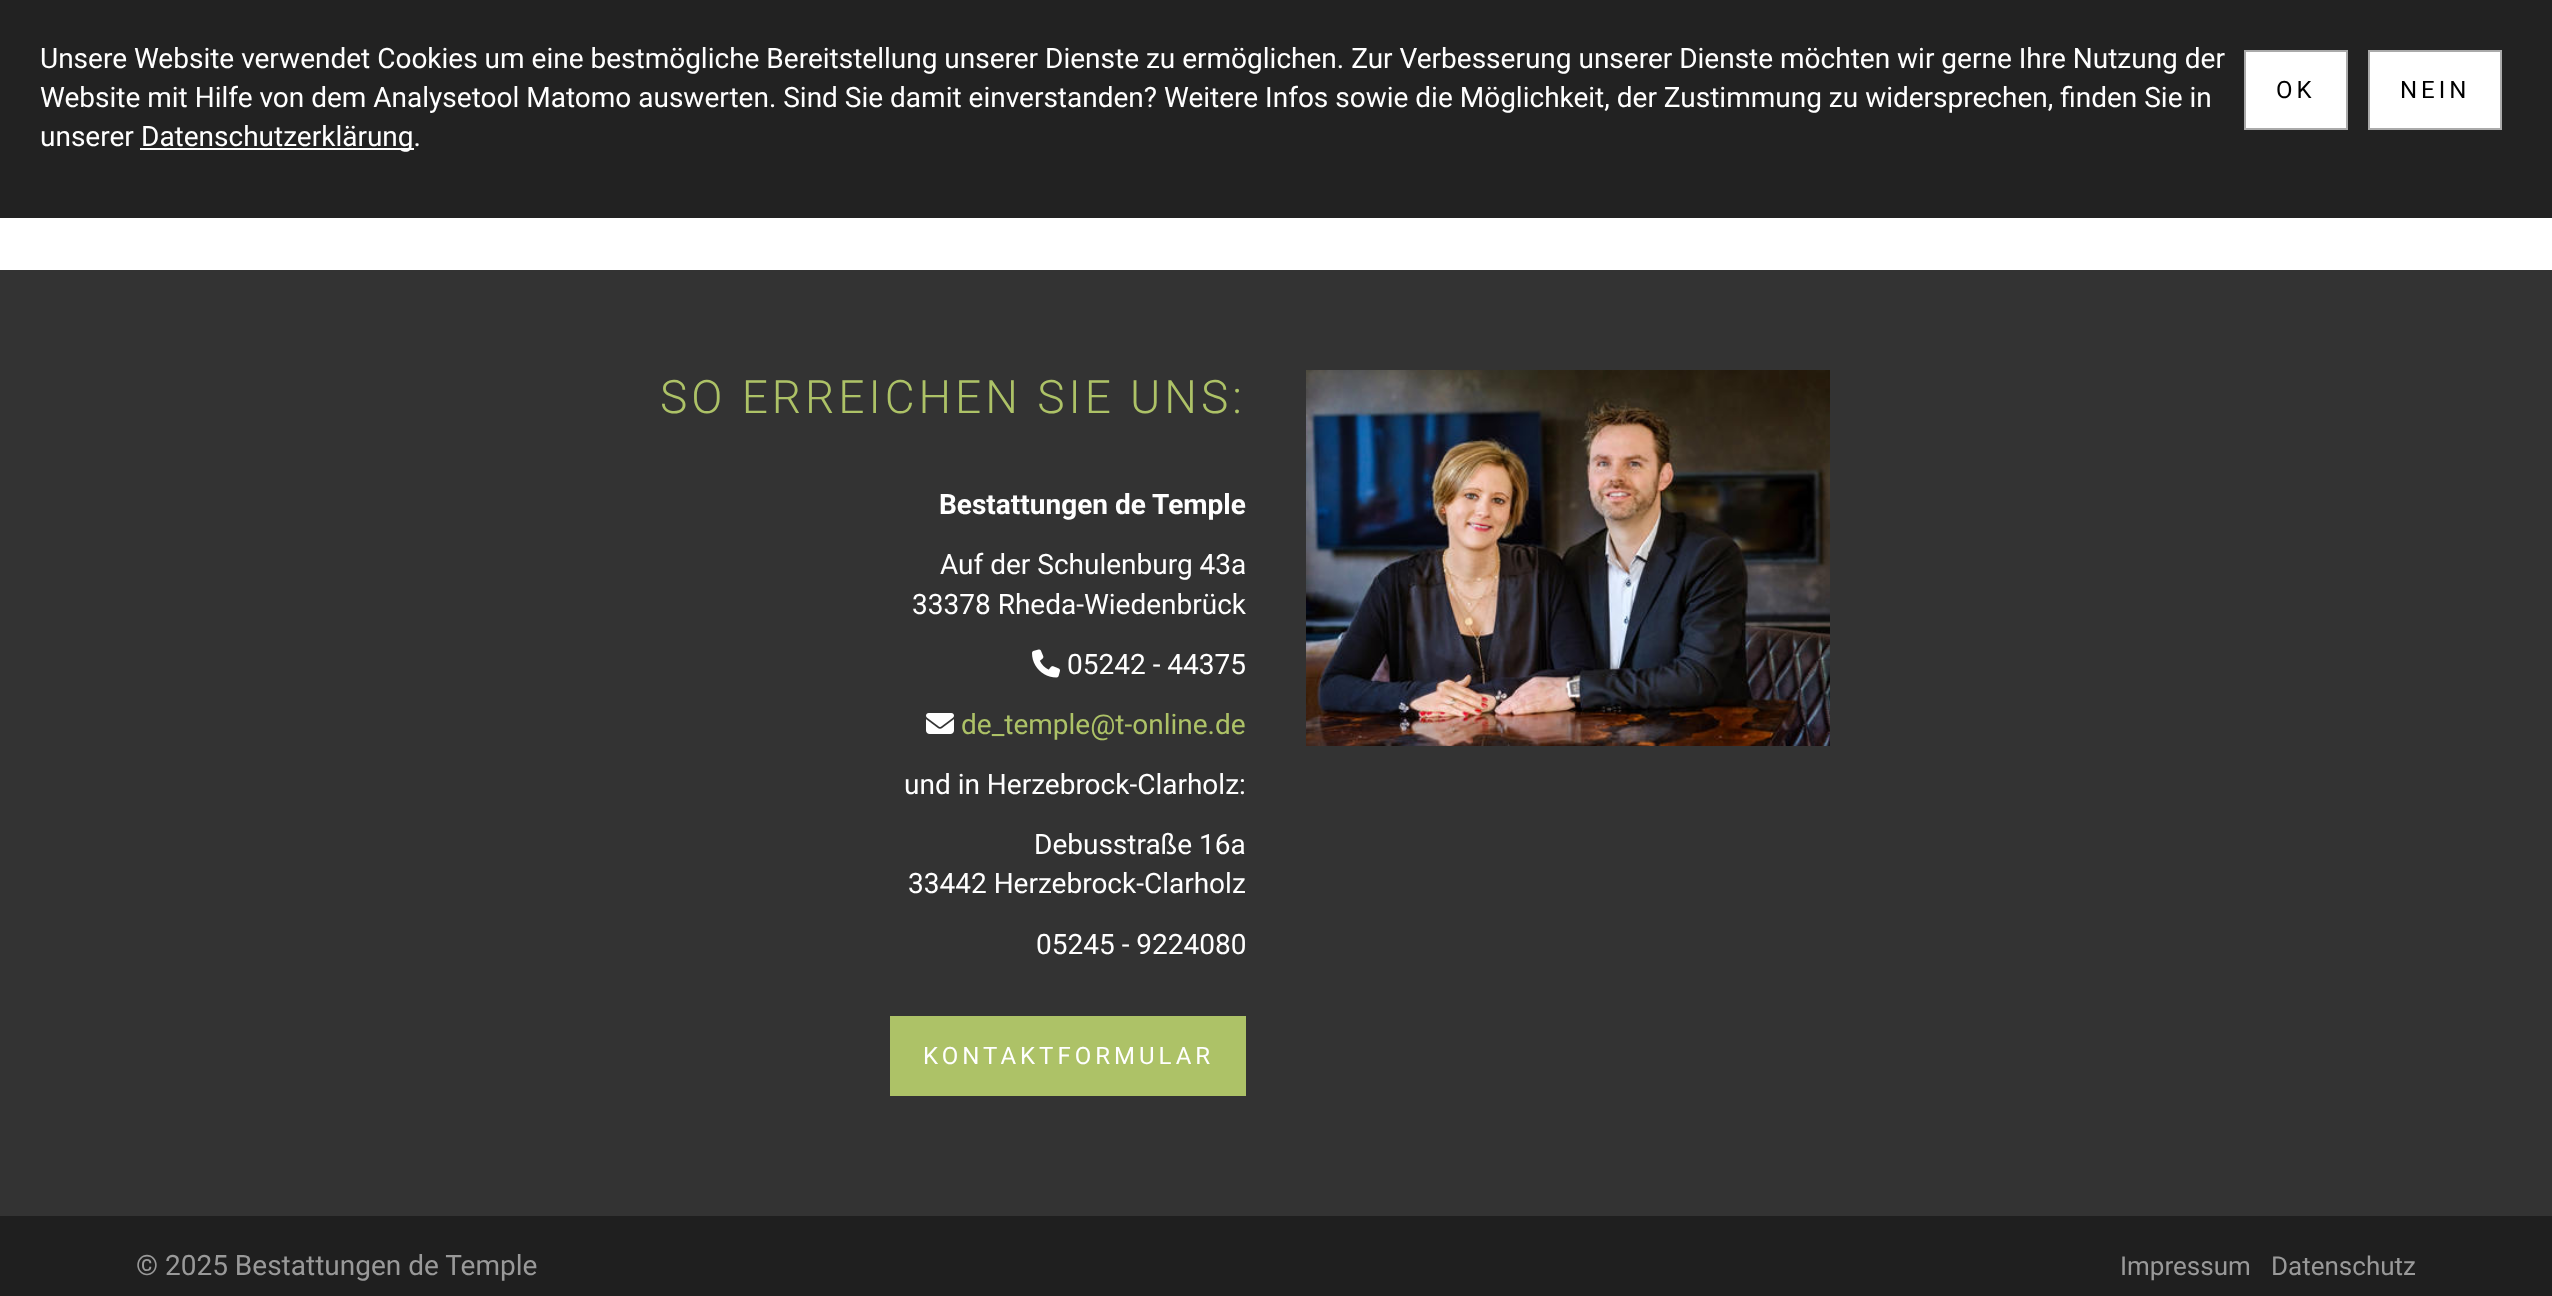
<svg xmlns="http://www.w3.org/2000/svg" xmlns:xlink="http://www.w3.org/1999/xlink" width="2552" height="1296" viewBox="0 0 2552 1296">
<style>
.cls-1{font:28px Roboto;fill:#ffffff}
.cls-2{font:24px Roboto;letter-spacing:4px;fill:#000000}
.cls-3{font:300 46px Roboto;letter-spacing:4px;fill:#adc267}
.cls-4{font:bold 28px Roboto;fill:#ffffff}
.cls-5{font:28px Roboto;fill:#adc267}
.cls-6{font:24px Roboto;letter-spacing:4px;fill:#ffffff}
.cls-7{font:28px Roboto;fill:#999999}
.cls-8{font:26px Roboto;fill:#999999}
</style>
<rect width="100%" height="100%" fill="#ffffff"/>
<rect fill="#222222" x="0" y="0" width="2552" height="218"/>
<rect fill="#ffffff" x="140" y="148" width="274" height="2"/>
<rect fill="#ffffff" stroke="#aaaaaa" stroke-width="2" x="2245" y="51" width="102" height="78"/>
<rect fill="#ffffff" stroke="#aaaaaa" stroke-width="2" x="2369" y="51" width="132" height="78"/>
<rect fill="#333333" x="0" y="270" width="2552" height="946"/>
<image xlink:href="image0.png" x="1032" y="649" width="28" height="29"/>
<image xlink:href="image1.png" x="926" y="713" width="28" height="21"/>
<rect fill="#adc267" x="890" y="1016" width="356" height="80"/>
<image xlink:href="image2.png" x="1306" y="370" width="524" height="376"/>
<rect fill="#1f1f1f" x="0" y="1216" width="2552" height="80"/>
<text class="cls-1"><tspan x="40" y="68">Unsere Website verwendet Cookies um eine bestmögliche Bereitstellung unserer Dienste zu ermöglichen. Zur Verbesserung unserer Dienste möchten wir gerne Ihre Nutzung der</tspan><tspan x="40" y="107">Website mit Hilfe von dem Analysetool Matomo auswerten. Sind Sie damit einverstanden? Weitere Infos sowie die Möglichkeit, der Zustimmung zu widersprechen, finden Sie in</tspan><tspan x="40" y="146">unserer</tspan></text>
<text class="cls-1" x="141" y="146">Datenschutzerklärung.</text>
<text class="cls-2" x="2276" y="98">OK</text>
<text class="cls-2" x="2400" y="98">NEIN</text>
<text class="cls-3" x="660" y="413">SO ERREICHEN SIE UNS:</text>
<text class="cls-4" x="939" y="514">Bestattungen de Temple</text>
<text class="cls-1" x="940" y="574">Auf der Schulenburg 43a</text>
<text class="cls-1" x="912" y="614">33378 Rheda-Wiedenbrück</text>
<text class="cls-1" x="1067" y="674">05242 - 44375</text>
<text class="cls-5" x="961" y="734">de_temple@t-online.de</text>
<text class="cls-1" x="904" y="794">und in Herzebrock-Clarholz:</text>
<text class="cls-1" x="1034" y="854">Debusstraße 16a</text>
<text class="cls-1" x="908" y="893">33442 Herzebrock-Clarholz</text>
<text class="cls-1" x="1036" y="954">05245 - 9224080</text>
<text class="cls-6" x="923" y="1064">KONTAKTFORMULAR</text>
<text class="cls-7" x="136" y="1275">© 2025 Bestattungen de Temple</text>
<text class="cls-8" x="2120" y="1275">Impressum</text>
<text class="cls-8" x="2271" y="1275">Datenschutz</text>
</svg>
